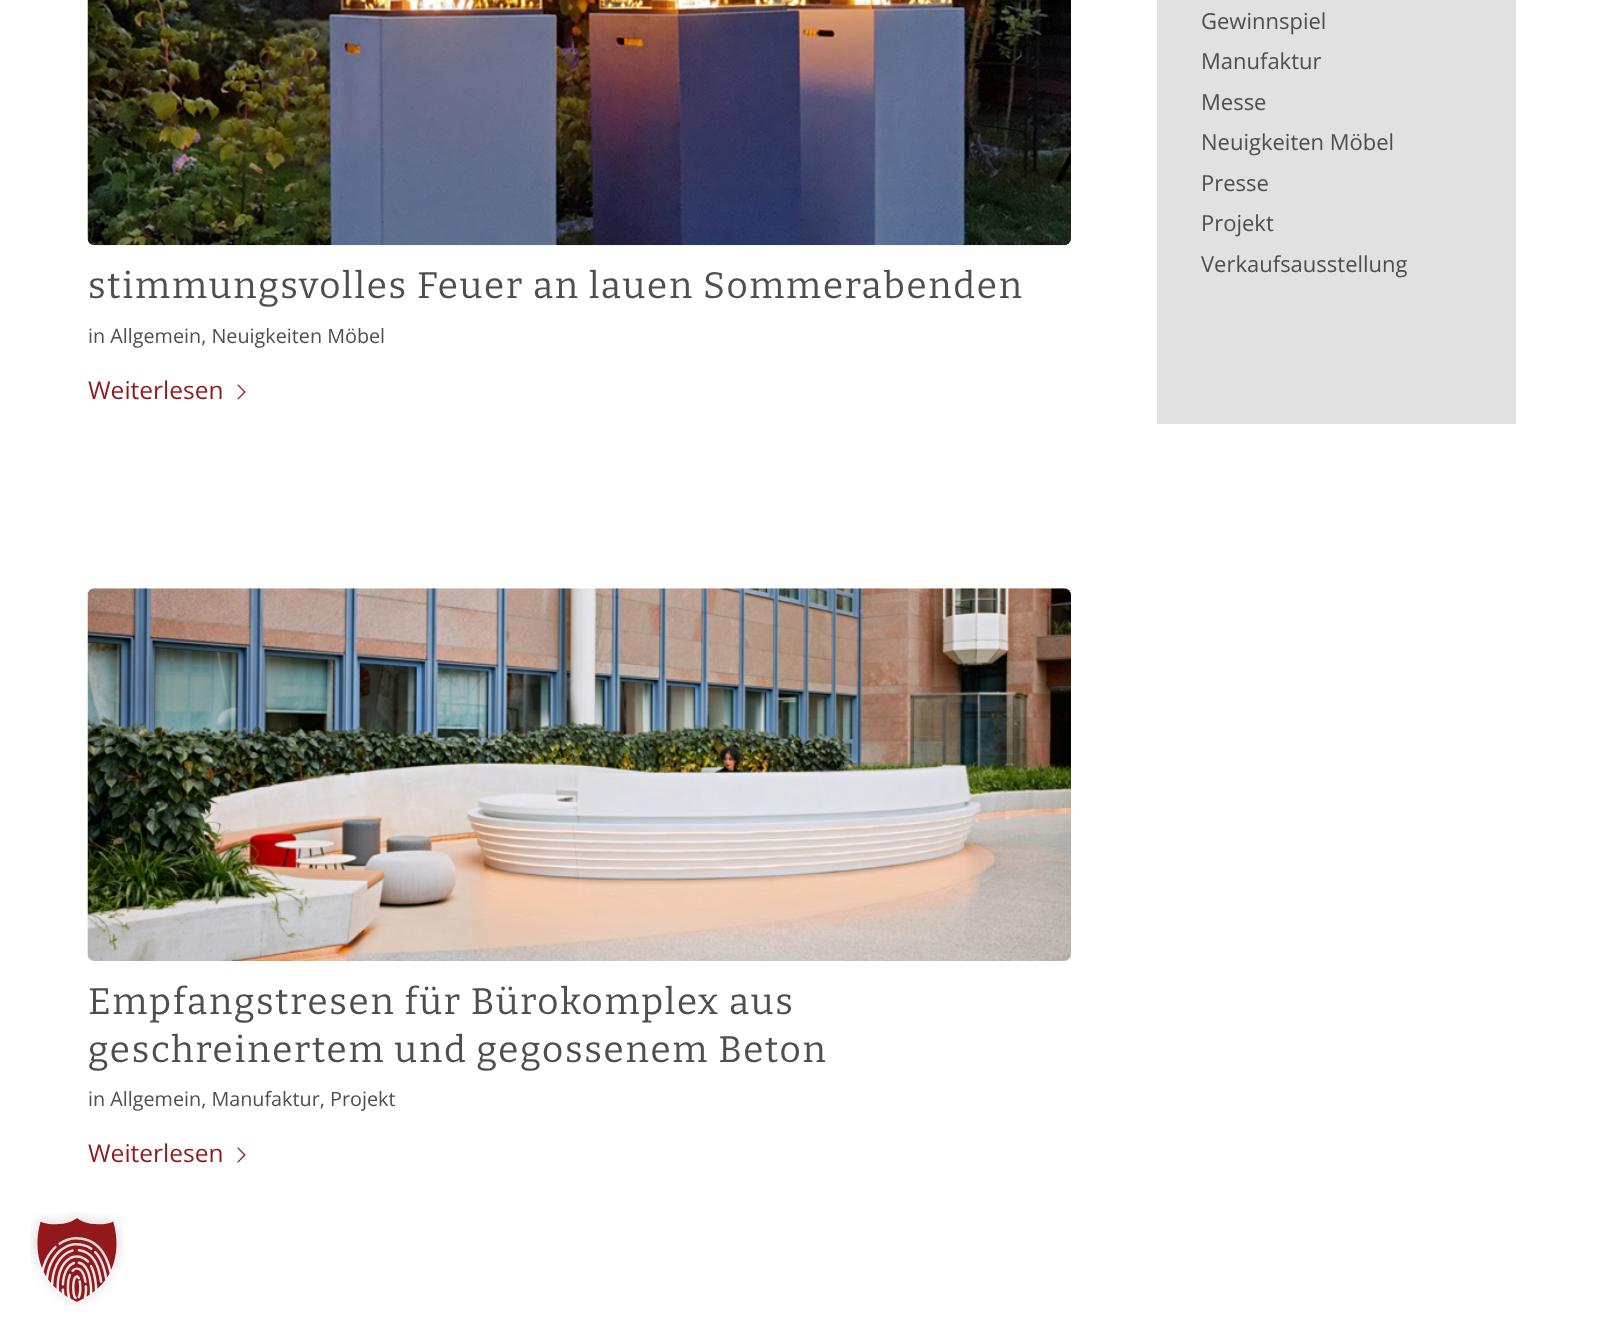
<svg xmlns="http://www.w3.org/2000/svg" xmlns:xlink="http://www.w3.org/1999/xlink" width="1603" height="1336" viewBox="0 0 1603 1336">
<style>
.cls-1{font:22px Open Sans;fill:#4e4e4e}
.cls-2{font:100 36.75px Bitter;letter-spacing:1.75px;fill:#4e4e4e}
.cls-3{font:19.8px Open Sans;fill:#4e4e4e}
.cls-4{font:24.5px Open Sans;fill:#92181c}
</style>
<rect width="100%" height="100%" fill="#ffffff"/>
<rect fill="#e1e1e1" x="1157" y="0" width="359" height="424"/>
<image xlink:href="image0.png" x="87" y="0" width="984" height="246"/>
<image xlink:href="image1.png" x="237" y="384" width="9" height="16"/>
<image xlink:href="image2.png" x="87" y="588" width="984" height="373"/>
<image xlink:href="image1.png" x="237" y="1147" width="9" height="16"/>
<image xlink:href="image3.png" x="30" y="1212" width="94" height="94"/>
<text class="cls-1"><tspan x="1201" y="29">Gewinnspiel</tspan><tspan x="1201" y="69">Manufaktur</tspan><tspan x="1201" y="110">Messe</tspan><tspan x="1201" y="150">Neuigkeiten Möbel</tspan><tspan x="1201" y="191">Presse</tspan><tspan x="1201" y="231">Projekt</tspan><tspan x="1201" y="272">Verkaufsausstellung</tspan></text>
<text class="cls-2" x="88" y="298">stimmungsvolles Feuer an lauen Sommerabenden</text>
<text class="cls-3" x="88" y="343">in Allgemein, Neuigkeiten Möbel</text>
<text class="cls-4" x="88" y="399">Weiterlesen</text>
<text class="cls-2"><tspan x="88" y="1014">Empfangstresen für Bürokomplex aus</tspan><tspan x="88" y="1062">geschreinertem und gegossenem Beton</tspan></text>
<text class="cls-3" x="88" y="1106">in Allgemein, Manufaktur, Projekt</text>
<text class="cls-4" x="88" y="1162">Weiterlesen</text>
</svg>
